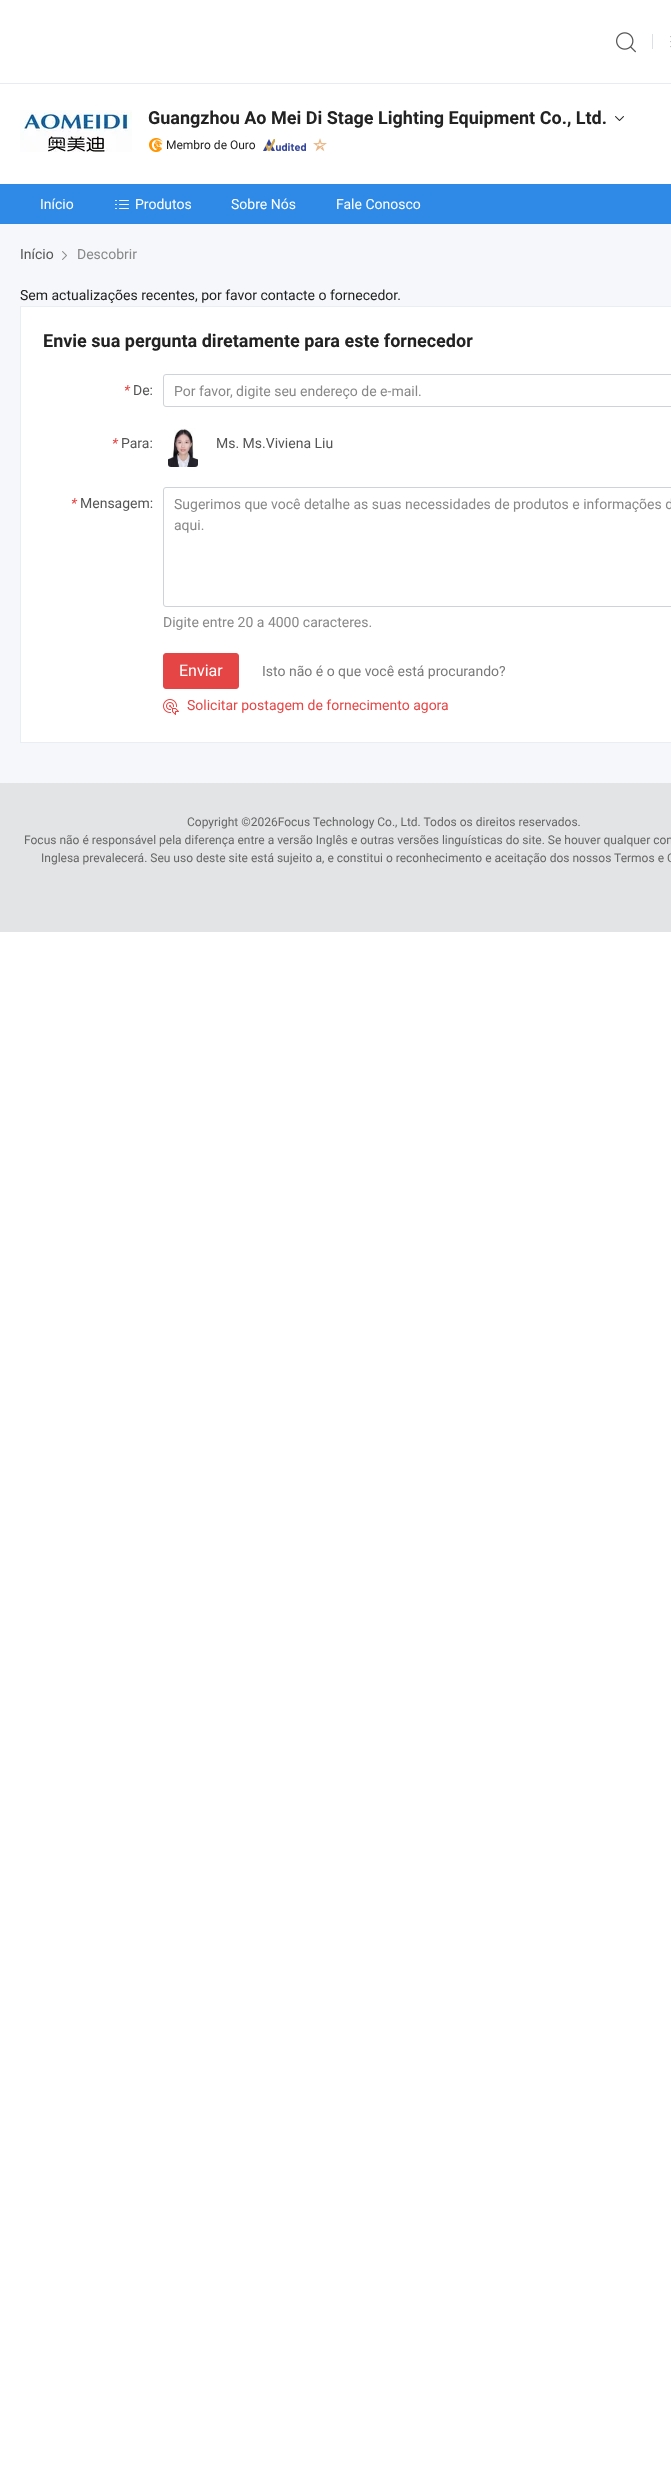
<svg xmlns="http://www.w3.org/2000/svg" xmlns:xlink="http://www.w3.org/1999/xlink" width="671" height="2469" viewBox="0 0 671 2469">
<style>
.cls-1{font:bold 18px Roboto;fill:#222222}
.cls-2{font:12px Roboto;fill:#222222}
.cls-3{font:14px Roboto;fill:#ffffff}
.cls-4{font:14px Roboto;fill:#555555}
.cls-5{font:14px Roboto;fill:#888888}
.cls-6{font:14px Roboto;fill:#222222}
.cls-7{font:italic 14px Roboto;fill:#e64545}
.cls-8{font:16px Roboto;fill:#ffffff}
.cls-9{font:14px Roboto;fill:#7a7a7a}
.cls-10{font:14px Roboto;fill:#e64545}
.cls-11{font:12px Roboto;fill:#666666}
</style>
<rect width="100%" height="100%" fill="#ffffff"/>
<image xlink:href="image0.png" x="616" y="32" width="20" height="21"/>
<rect fill="#dae0e6" x="652" y="34" width="1" height="15"/>
<image xlink:href="image1.png" x="670" y="36" width="1" height="12"/>
<rect fill="#e6ecf2" x="0" y="83" width="671" height="1"/>
<image xlink:href="image2.png" x="20" y="110" width="112" height="42"/>
<image xlink:href="image3.png" x="615" y="116" width="9" height="5"/>
<image xlink:href="image4.png" x="149" y="138" width="14" height="14"/>
<image xlink:href="image5.png" x="263" y="139" width="43" height="12"/>
<image xlink:href="image6.png" x="313" y="138" width="14" height="14"/>
<rect fill="#2e8ae6" x="0" y="184" width="671" height="40"/>
<image xlink:href="image7.png" x="115" y="200" width="14" height="9"/>
<rect fill="#f5f7fa" x="0" y="224" width="671" height="559"/>
<image xlink:href="image8.png" x="62" y="251" width="5" height="9"/>
<rect fill="#ffffff" stroke="#e9eef4" x="20.5" y="306.5" width="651" height="436"/>
<rect fill="none" stroke="#ced3d9" x="163.5" y="374.5" width="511" height="32" rx="2.5"/>
<image xlink:href="image9.png" x="168" y="428" width="30" height="39"/>
<rect fill="none" stroke="#ced3d9" x="163.5" y="487.5" width="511" height="119" rx="2.5"/>
<rect fill="#e64545" stroke="#e64545" x="163.5" y="653.5" width="75" height="35" rx="2.5"/>
<image xlink:href="image10.png" x="163" y="699" width="16" height="16"/>
<rect fill="#e3e4e6" x="0" y="783" width="671" height="149"/>
<text class="cls-1" x="148" y="124">Guangzhou Ao Mei Di Stage Lighting Equipment Co., Ltd.</text>
<text class="cls-2" x="166" y="149">Membro de Ouro</text>
<text class="cls-3" x="40" y="209">Início</text>
<text class="cls-3" x="135" y="209">Produtos</text>
<text class="cls-3" x="231" y="209">Sobre Nós</text>
<text class="cls-3" x="336" y="209">Fale Conosco</text>
<text class="cls-4" x="20" y="259">Início</text>
<text class="cls-5" x="77" y="259">Descobrir</text>
<text class="cls-6" x="20" y="300">Sem actualizações recentes, por favor contacte o fornecedor.</text>
<text class="cls-1" x="43" y="347">Envie sua pergunta diretamente para este fornecedor</text>
<text class="cls-7" x="124" y="395">*</text>
<text class="cls-4" x="133" y="395">De:</text>
<text class="cls-5" x="174" y="396">Por favor, digite seu endereço de e-mail.</text>
<text class="cls-7" x="112" y="448">*</text>
<text class="cls-4" x="121" y="448">Para:</text>
<text class="cls-4" x="216" y="448">Ms. Ms.Viviena Liu</text>
<text class="cls-7" x="71" y="508">*</text>
<text class="cls-4" x="80" y="508">Mensagem:</text>
<text class="cls-5"><tspan x="174" y="509">Sugerimos que você detalhe as suas necessidades de produtos e informações d</tspan><tspan x="174" y="530">aqui.</tspan></text>
<text class="cls-5" x="163" y="627">Digite entre 20 a 4000 caracteres.</text>
<text class="cls-8" x="179" y="676">Enviar</text>
<text class="cls-9" x="262" y="676">Isto não é o que você está procurando?</text>
<text class="cls-10" x="187" y="710">Solicitar postagem de fornecimento agora</text>
<text class="cls-11" x="187" y="826">Copyright ©2026Focus Technology Co., Ltd. Todos os direitos reservados.</text>
<text class="cls-11" x="24" y="844">Focus não é responsável pela diferença entre a versão Inglês e outras versões linguísticas do site. Se houver qualquer con</text>
<text class="cls-11" x="41" y="862">Inglesa prevalecerá. Seu uso deste site está sujeito a, e constitui o reconhecimento e aceitação dos nossos Termos e C</text>
</svg>
